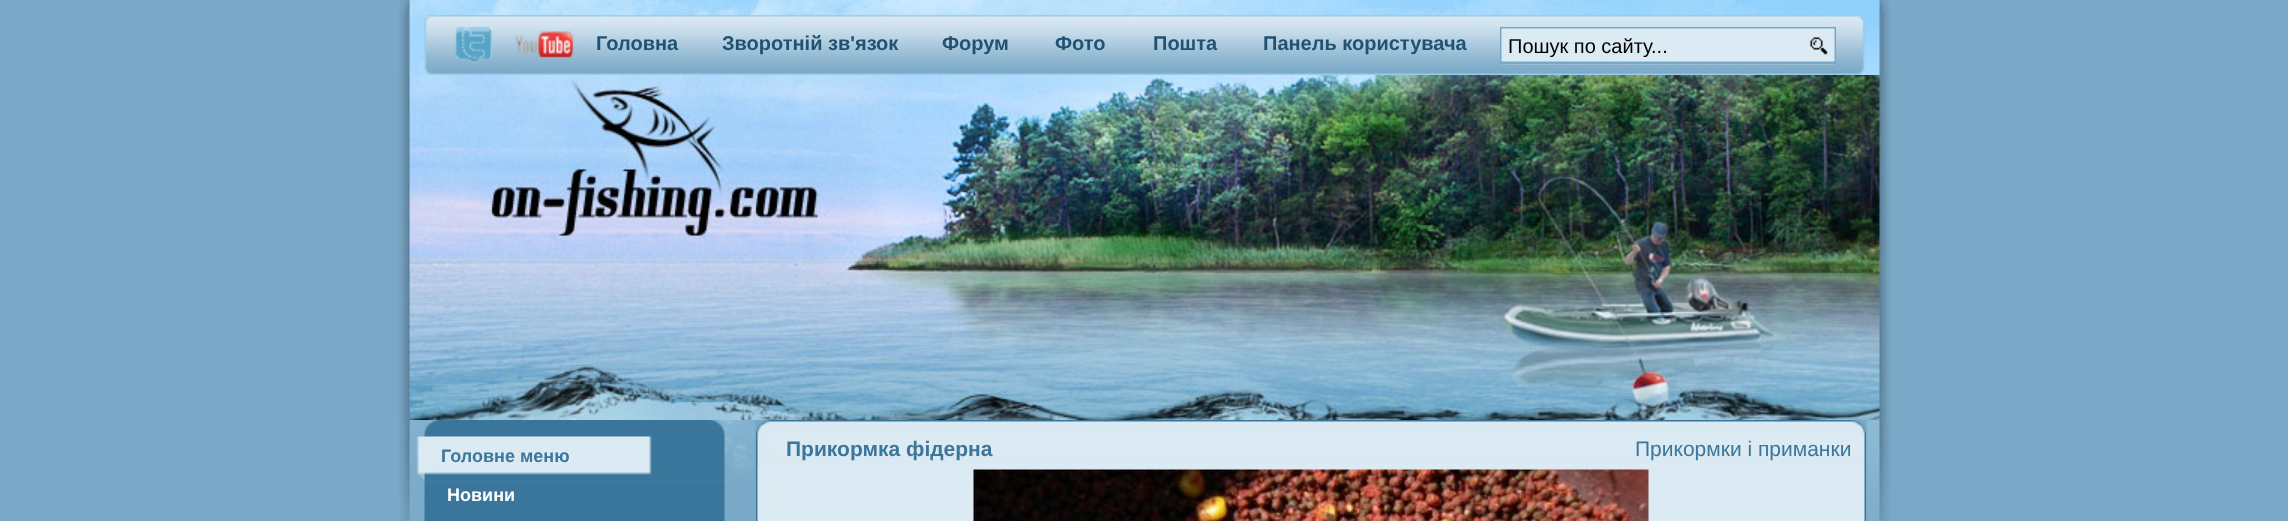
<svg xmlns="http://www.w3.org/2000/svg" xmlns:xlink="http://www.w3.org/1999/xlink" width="2288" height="521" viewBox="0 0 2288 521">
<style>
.cls-1{font:bold 20px Liberation Sans;fill:#225271}
.cls-2{font:20px Liberation Sans;fill:#000000}
.cls-3{font:bold 18px Liberation Sans;fill:#3c769b}
.cls-4{font:bold 18px Liberation Sans;fill:#ffffff}
.cls-5{font:bold 21px Liberation Sans;fill:#3c769b}
.cls-6{font:21px Liberation Sans;fill:#3c769b}
</style>
<defs>
<clipPath id="clip1"><rect x="1500" y="35" width="336" height="22"/></clipPath>
</defs>
<rect width="100%" height="100%" fill="#7aa9c7"/>
<image xlink:href="image0.png" x="399" y="0" width="1491" height="75"/>
<image xlink:href="image1.png" x="440" y="15" width="68" height="48"/>
<image xlink:href="image2.png" x="509" y="15" width="68" height="60"/>
<image xlink:href="image3.png" x="1500" y="27" width="336" height="38"/>
<image xlink:href="image4.png" x="398" y="75" width="1493" height="345"/>
<image xlink:href="image5.png" x="399" y="420" width="356" height="62"/>
<image xlink:href="image6.png" x="404" y="481" width="321" height="1"/>
<image xlink:href="image7.png" x="399" y="481" width="326" height="40"/>
<image xlink:href="image8.png" x="1866" y="420" width="25" height="101"/>
<image xlink:href="image9.png" x="756" y="465" width="1110" height="56"/>
<image xlink:href="image10.png" x="756" y="420" width="1110" height="45"/>
<image xlink:href="image11.png" x="973" y="469" width="676" height="52"/>
<text class="cls-1" x="596" y="50">Головна</text>
<text class="cls-1" x="722" y="50">Зворотній зв'язок</text>
<text class="cls-1" x="942" y="50">Форум</text>
<text class="cls-1" x="1055" y="50">Фото</text>
<text class="cls-1" x="1153" y="50">Пошта</text>
<text class="cls-1" x="1263" y="50">Панель користувача</text>
<g clip-path="url(#clip1)">
<text class="cls-2" x="1508" y="53">Пошук по сайту...</text>
</g>
<text class="cls-3" x="441" y="462">Головне меню</text>
<text class="cls-4" x="447" y="501">Новини</text>
<text class="cls-5" x="786" y="456">Прикормка фідерна</text>
<text class="cls-6" x="1635" y="456">Прикормки і приманки</text>
</svg>
